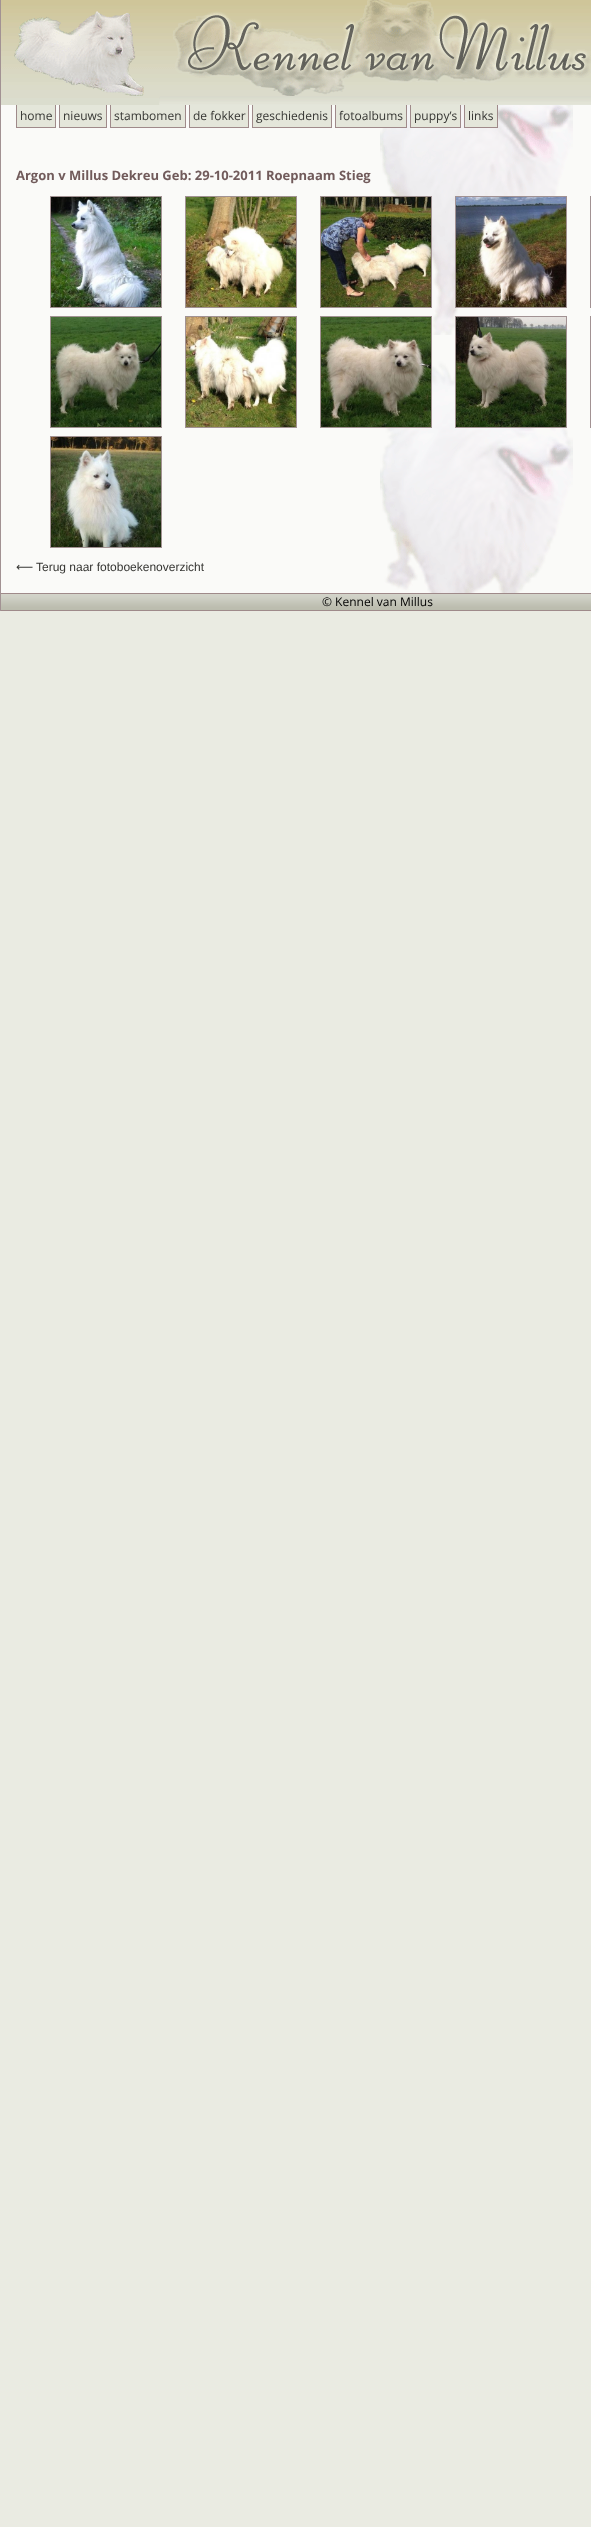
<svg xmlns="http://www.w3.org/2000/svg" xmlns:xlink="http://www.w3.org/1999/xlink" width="591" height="2527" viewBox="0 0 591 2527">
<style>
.cls-1{font:12px Open Sans;fill:#363633}
.cls-2{font:bold 13px Open Sans;fill:#715b5b}
.cls-3{font:12px DejaVu Sans;fill:#363633}
.cls-4{font:12px Liberation Sans;fill:#363633}
.cls-5{font:12px Open Sans;fill:#000000}
</style>
<rect width="100%" height="100%" fill="#eaebe2"/>
<image xlink:href="image0.png" x="1" y="105" width="590" height="488"/>
<rect fill="#a29293" x="0" y="0" width="1" height="611"/>
<image xlink:href="image1.png" x="1" y="0" width="590" height="105"/>
<rect fill="#9f8a8a" x="55" y="105" width="1" height="23"/>
<rect fill="#9f8a8a" x="16" y="127" width="40" height="1"/>
<rect fill="#9f8a8a" x="16" y="105" width="1" height="23"/>
<rect fill="#e4e6da" x="17" y="105" width="38" height="22"/>
<rect fill="#9f8a8a" x="106" y="105" width="1" height="23"/>
<rect fill="#9f8a8a" x="59" y="127" width="48" height="1"/>
<rect fill="#9f8a8a" x="59" y="105" width="1" height="23"/>
<rect fill="#e4e6da" x="60" y="105" width="46" height="22"/>
<rect fill="#9f8a8a" x="185" y="105" width="1" height="23"/>
<rect fill="#9f8a8a" x="110" y="127" width="76" height="1"/>
<rect fill="#9f8a8a" x="110" y="105" width="1" height="23"/>
<rect fill="#e4e6da" x="111" y="105" width="74" height="22"/>
<rect fill="#9f8a8a" x="248" y="105" width="1" height="23"/>
<rect fill="#9f8a8a" x="189" y="127" width="60" height="1"/>
<rect fill="#9f8a8a" x="189" y="105" width="1" height="23"/>
<rect fill="#e4e6da" x="190" y="105" width="58" height="22"/>
<rect fill="#9f8a8a" x="331" y="105" width="1" height="23"/>
<rect fill="#9f8a8a" x="252" y="127" width="80" height="1"/>
<rect fill="#9f8a8a" x="252" y="105" width="1" height="23"/>
<rect fill="#e4e6da" x="253" y="105" width="78" height="22"/>
<rect fill="#9f8a8a" x="406" y="105" width="1" height="23"/>
<rect fill="#9f8a8a" x="335" y="127" width="72" height="1"/>
<rect fill="#9f8a8a" x="335" y="105" width="1" height="23"/>
<rect fill="#e4e6da" x="336" y="105" width="70" height="22"/>
<rect fill="#9f8a8a" x="460" y="105" width="1" height="23"/>
<rect fill="#9f8a8a" x="410" y="127" width="51" height="1"/>
<rect fill="#9f8a8a" x="410" y="105" width="1" height="23"/>
<rect fill="#e4e6da" x="411" y="105" width="49" height="22"/>
<rect fill="#9f8a8a" x="497" y="105" width="1" height="23"/>
<rect fill="#9f8a8a" x="464" y="127" width="34" height="1"/>
<rect fill="#9f8a8a" x="464" y="105" width="1" height="23"/>
<rect fill="#e4e6da" x="465" y="105" width="32" height="22"/>
<rect fill="none" stroke="#a29293" x="50.5" y="196.5" width="111" height="111"/>
<image xlink:href="image2.png" x="51" y="197" width="110" height="110"/>
<rect fill="none" stroke="#a29293" x="185.5" y="196.5" width="111" height="111"/>
<image xlink:href="image3.png" x="186" y="197" width="110" height="110"/>
<rect fill="none" stroke="#a29293" x="320.5" y="196.5" width="111" height="111"/>
<image xlink:href="image4.png" x="321" y="197" width="110" height="110"/>
<rect fill="none" stroke="#a29293" x="455.5" y="196.5" width="111" height="111"/>
<image xlink:href="image5.png" x="456" y="197" width="110" height="110"/>
<rect fill="none" stroke="#a29293" x="590.5" y="196.5" width="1" height="111"/>
<rect fill="none" stroke="#a29293" x="50.5" y="316.5" width="111" height="111"/>
<image xlink:href="image6.png" x="51" y="317" width="110" height="110"/>
<rect fill="none" stroke="#a29293" x="185.5" y="316.5" width="111" height="111"/>
<image xlink:href="image7.png" x="186" y="317" width="110" height="110"/>
<rect fill="none" stroke="#a29293" x="320.5" y="316.5" width="111" height="111"/>
<image xlink:href="image8.png" x="321" y="317" width="110" height="110"/>
<rect fill="none" stroke="#a29293" x="455.5" y="316.5" width="111" height="111"/>
<image xlink:href="image9.png" x="456" y="317" width="110" height="110"/>
<rect fill="none" stroke="#a29293" x="590.5" y="316.5" width="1" height="111"/>
<rect fill="none" stroke="#a29293" x="50.5" y="436.5" width="111" height="111"/>
<image xlink:href="image10.png" x="51" y="437" width="110" height="110"/>
<image xlink:href="image11.png" x="1" y="593" width="590" height="18"/>
<text class="cls-1" x="20" y="120">home</text>
<text class="cls-1" x="63" y="120">nieuws</text>
<text class="cls-1" x="114" y="120">stambomen</text>
<text class="cls-1" x="193" y="120">de fokker</text>
<text class="cls-1" x="256" y="120">geschiedenis</text>
<text class="cls-1" x="339" y="120">fotoalbums</text>
<text class="cls-1" x="414" y="120">puppy’s</text>
<text class="cls-1" x="468" y="120">links</text>
<text class="cls-2" x="16" y="180">Argon v Millus Dekreu Geb: 29-10-2011 Roepnaam Stieg</text>
<text class="cls-3" x="16" y="571">⟵</text>
<text class="cls-4" x="36" y="571">Terug naar fotoboekenoverzicht</text>
<text class="cls-5" x="322" y="606">© Kennel van Millus</text>
</svg>
